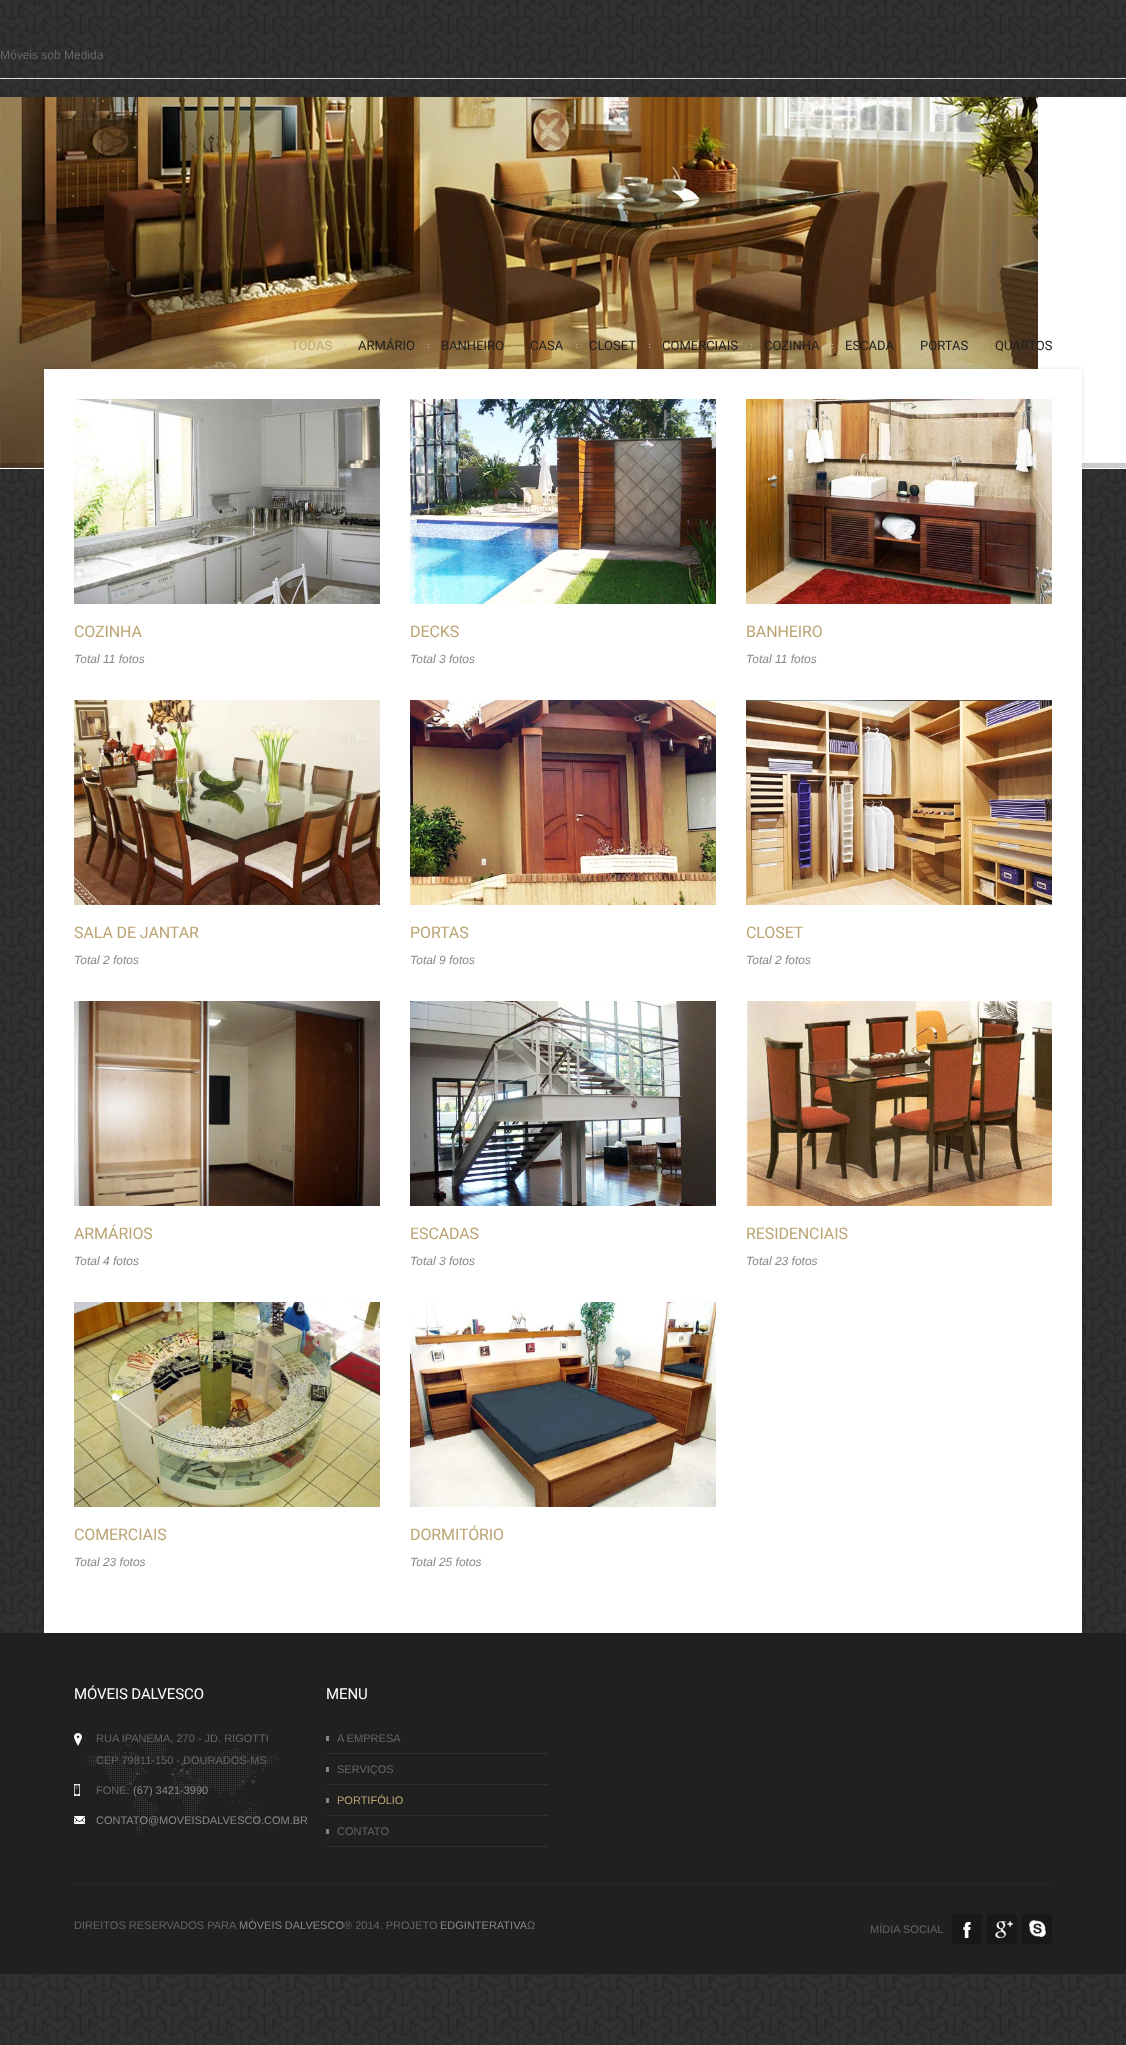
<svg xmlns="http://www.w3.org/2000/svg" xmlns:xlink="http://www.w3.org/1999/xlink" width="1126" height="2045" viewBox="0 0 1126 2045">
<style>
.cls-1{font:12px Liberation Sans;fill:#666666}
.cls-2{font:13px Roboto;fill:#bca474}
.cls-3{font:13px Roboto;fill:#202020}
.cls-4{font:16px Roboto;letter-spacing:-0.1px;fill:#bca474}
.cls-5{font:italic 12px Liberation Sans;fill:#888888}
.cls-6{font:15px Roboto;letter-spacing:-0.1px;fill:#ffffff}
.cls-7{font:11px Liberation Sans;fill:#666666}
.cls-8{font:11px Liberation Sans;fill:#888888}
.cls-9{font:11px Liberation Sans;fill:#bca474}
</style>
<rect width="100%" height="100%" fill="#ffffff"/>
<image xlink:href="image0.png" x="0" y="0" width="1126" height="2045"/>
<rect fill="#dddddd" x="0" y="78" width="1126" height="1"/>
<rect fill="#ffffff" x="0" y="468" width="1126" height="1"/>
<rect fill="#ffffff" x="1038" y="97" width="88" height="371"/>
<image xlink:href="image1.png" x="0" y="97" width="1038" height="371"/>
<rect fill="#000000" fill-opacity="0.2" x="0" y="463" width="1126" height="5"/>
<rect fill="#202020" x="0" y="1633" width="1126" height="341"/>
<rect fill="#000000" fill-opacity="0.1" filter="blur(2px)" x="44" y="369" width="1038" height="1264"/>
<rect fill="#ffffff" x="44" y="369" width="1038" height="1264"/>
<image xlink:href="image2.png" x="345" y="344" width="1" height="4"/>
<image xlink:href="image3.png" x="428" y="344" width="1" height="4"/>
<image xlink:href="image4.png" x="517" y="344" width="1" height="4"/>
<image xlink:href="image5.png" x="576" y="344" width="1" height="4"/>
<image xlink:href="image6.png" x="649" y="344" width="1" height="4"/>
<image xlink:href="image7.png" x="751" y="344" width="1" height="4"/>
<image xlink:href="image8.png" x="832" y="344" width="1" height="4"/>
<image xlink:href="image9.png" x="907" y="344" width="1" height="4"/>
<image xlink:href="image10.png" x="982" y="344" width="1" height="4"/>
<image xlink:href="image11.png" x="74" y="399" width="306" height="205"/>
<image xlink:href="image12.png" x="410" y="399" width="306" height="205"/>
<image xlink:href="image13.png" x="746" y="399" width="306" height="205"/>
<image xlink:href="image14.png" x="74" y="700" width="306" height="205"/>
<image xlink:href="image15.png" x="410" y="700" width="306" height="205"/>
<image xlink:href="image16.png" x="746" y="700" width="306" height="205"/>
<image xlink:href="image17.png" x="74" y="1001" width="306" height="205"/>
<image xlink:href="image18.png" x="410" y="1001" width="306" height="205"/>
<image xlink:href="image19.png" x="746" y="1001" width="306" height="205"/>
<image xlink:href="image20.png" x="74" y="1302" width="306" height="205"/>
<image xlink:href="image21.png" x="410" y="1302" width="306" height="205"/>
<image xlink:href="image22.png" x="87" y="1740" width="193" height="95"/>
<image xlink:href="image23.png" x="74" y="1733" width="8" height="13"/>
<image xlink:href="image24.png" x="74" y="1784" width="6" height="12"/>
<image xlink:href="image25.png" x="74" y="1816" width="11" height="8"/>
<rect fill="#848484" x="326" y="1736" width="3" height="5"/>
<path fill="none" stroke="#404040" stroke-dasharray="1 1" d="M326 1753.5H548"/>
<rect fill="#848484" x="326" y="1767" width="3" height="5"/>
<path fill="none" stroke="#404040" stroke-dasharray="1 1" d="M326 1784.5H548"/>
<rect fill="#848484" x="326" y="1798" width="3" height="5"/>
<path fill="none" stroke="#404040" stroke-dasharray="1 1" d="M326 1815.5H548"/>
<rect fill="#848484" x="326" y="1829" width="3" height="5"/>
<path fill="none" stroke="#404040" stroke-dasharray="1 1" d="M326 1846.5H548"/>
<rect fill="#2a2a2a" x="74" y="1883" width="978" height="1"/>
<rect fill="#181818" x="952" y="1914" width="30" height="30" rx="3"/>
<image xlink:href="image26.png" x="963" y="1922" width="8" height="16"/>
<rect fill="#181818" x="987" y="1914" width="30" height="30" rx="3"/>
<image xlink:href="image27.png" x="995" y="1921" width="18" height="17"/>
<rect fill="#181818" x="1022" y="1914" width="30" height="30" rx="3"/>
<image xlink:href="image28.png" x="1029" y="1920" width="17" height="17"/>
<text class="cls-1" x="0" y="59">Móveis sob Medida</text>
<text class="cls-2" x="291" y="350">TODAS</text>
<text class="cls-3" x="358" y="350">ARMÁRIO</text>
<text class="cls-3" x="441" y="350">BANHEIRO</text>
<text class="cls-3" x="530" y="350">CASA</text>
<text class="cls-3" x="589" y="350">CLOSET</text>
<text class="cls-3" x="662" y="350">COMERCIAIS</text>
<text class="cls-3" x="764" y="350">COZINHA</text>
<text class="cls-3" x="845" y="350">ESCADA</text>
<text class="cls-3" x="920" y="350">PORTAS</text>
<text class="cls-3" x="995" y="350">QUARTOS</text>
<text class="cls-4" x="74" y="637">COZINHA</text>
<text class="cls-5" x="74" y="663">Total 11 fotos</text>
<text class="cls-4" x="410" y="637">DECKS</text>
<text class="cls-5" x="410" y="663">Total 3 fotos</text>
<text class="cls-4" x="746" y="637">BANHEIRO</text>
<text class="cls-5" x="746" y="663">Total 11 fotos</text>
<text class="cls-4" x="74" y="938">SALA DE JANTAR</text>
<text class="cls-5" x="74" y="964">Total 2 fotos</text>
<text class="cls-4" x="410" y="938">PORTAS</text>
<text class="cls-5" x="410" y="964">Total 9 fotos</text>
<text class="cls-4" x="746" y="938">CLOSET</text>
<text class="cls-5" x="746" y="964">Total 2 fotos</text>
<text class="cls-4" x="74" y="1239">ARMÁRIOS</text>
<text class="cls-5" x="74" y="1265">Total 4 fotos</text>
<text class="cls-4" x="410" y="1239">ESCADAS</text>
<text class="cls-5" x="410" y="1265">Total 3 fotos</text>
<text class="cls-4" x="746" y="1239">RESIDENCIAIS</text>
<text class="cls-5" x="746" y="1265">Total 23 fotos</text>
<text class="cls-4" x="74" y="1540">COMERCIAIS</text>
<text class="cls-5" x="74" y="1566">Total 23 fotos</text>
<text class="cls-4" x="410" y="1540">DORMITÓRIO</text>
<text class="cls-5" x="410" y="1566">Total 25 fotos</text>
<text class="cls-6" x="74" y="1699">MÓVEIS DALVESCO</text>
<text class="cls-7" x="96" y="1742">RUA IPANEMA, 270 - JD. RIGOTTI</text>
<text class="cls-7" x="96" y="1764">CEP 79811-150 - DOURADOS-MS</text>
<text class="cls-7" x="96" y="1794">FONE:</text>
<text class="cls-8" x="133" y="1794">(67) 3421-3990</text>
<text class="cls-8" x="96" y="1824">CONTATO@MOVEISDALVESCO.COM.BR</text>
<text class="cls-6" x="326" y="1699">MENU</text>
<text class="cls-7" x="337" y="1742">A EMPRESA</text>
<text class="cls-7" x="337" y="1773">SERVIÇOS</text>
<text class="cls-9" x="337" y="1804">PORTIFÓLIO</text>
<text class="cls-7" x="337" y="1835">CONTATO</text>
<text class="cls-7" x="74" y="1929">DIREITOS RESERVADOS PARA</text>
<text class="cls-8" x="239" y="1929">MÓVEIS DALVESCO</text>
<text class="cls-7" x="344" y="1929">® 2014. PROJETO</text>
<text class="cls-8" x="440" y="1929">EDGINTERATIVA</text>
<text class="cls-7" x="527" y="1929">Ω</text>
<text class="cls-7" x="870" y="1933">MÍDIA SOCIAL</text>
</svg>
